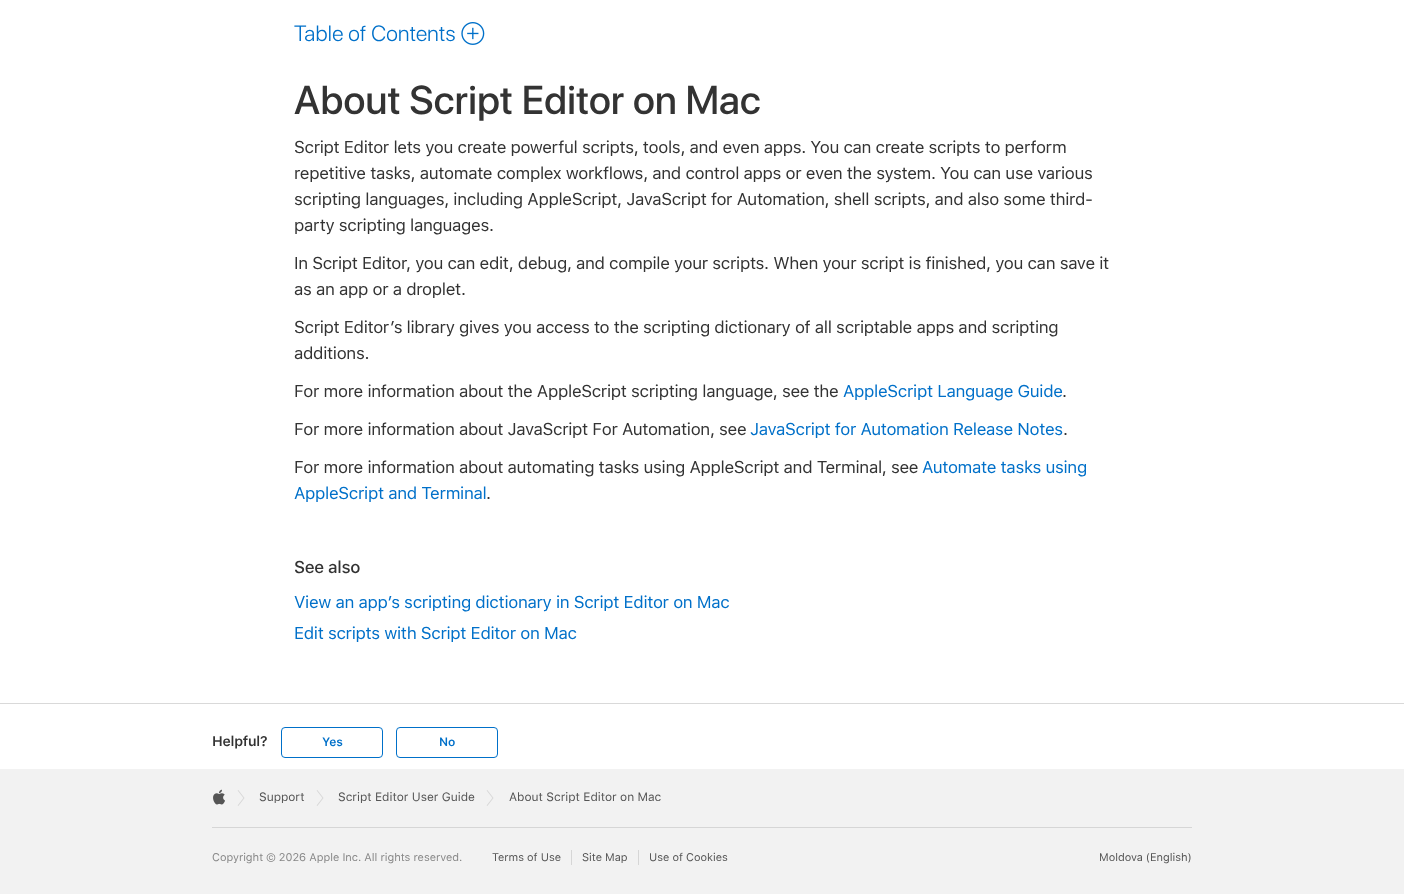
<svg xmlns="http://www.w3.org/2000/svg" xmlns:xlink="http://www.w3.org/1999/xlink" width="1404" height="895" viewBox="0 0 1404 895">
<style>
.cls-1{font:300 22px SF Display;letter-spacing:0.3px;fill:#0070c9}
.cls-2{font:500 40px SF Display;letter-spacing:0.3px;fill:#333333}
.cls-3{font:17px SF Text;letter-spacing:-0.36px;fill:#333333}
.cls-4{font:17px SF Text;letter-spacing:-0.36px;fill:#0070c9}
.cls-5{font:500 17px SF Text;letter-spacing:-0.36px;fill:#333333}
.cls-6{font:600 14px SF Text;letter-spacing:-0.25px;fill:#333333}
.cls-7{font:600 12px SF Text;fill:#0070c9}
.cls-8{font:12px SF Text;fill:#555555}
.cls-9{font:11.05px SF Text;fill:#888888}
.cls-10{font:11.05px SF Text;fill:#555555}
</style>
<rect width="100%" height="100%" fill="#ffffff"/>
<image xlink:href="image0.png" x="461" y="22" width="24" height="23"/>
<rect fill="#d9d9d9" x="0" y="703" width="1404" height="1"/>
<rect fill="none" stroke="#0070c9" x="281.5" y="727.5" width="101" height="30" rx="3.5"/>
<rect fill="none" stroke="#0070c9" x="396.5" y="727.5" width="101" height="30" rx="3.5"/>
<rect fill="#f2f2f2" x="0" y="769" width="1404" height="125"/>
<image xlink:href="image1.png" x="213" y="789" width="12" height="16"/>
<image xlink:href="image2.png" x="237" y="790" width="8" height="16"/>
<image xlink:href="image2.png" x="316" y="790" width="8" height="16"/>
<image xlink:href="image2.png" x="486" y="790" width="8" height="16"/>
<rect fill="#d6d6d6" x="212" y="827" width="980" height="1"/>
<rect fill="#d6d6d6" x="571" y="850" width="1" height="15"/>
<rect fill="#d6d6d6" x="638" y="850" width="1" height="15"/>
<text class="cls-1" x="294" y="41">Table of Contents</text>
<text class="cls-2" x="294" y="114">About Script Editor on Mac</text>
<text class="cls-3"><tspan x="294" y="153">Script Editor lets you create powerful scripts, tools, and even apps. You can create scripts to perform</tspan><tspan x="294" y="179">repetitive tasks, automate complex workflows, and control apps or even the system. You can use various</tspan><tspan x="294" y="205">scripting languages, including AppleScript, JavaScript for Automation, shell scripts, and also some third-</tspan><tspan x="294" y="231">party scripting languages.</tspan></text>
<text class="cls-3"><tspan x="294" y="269">In Script Editor, you can edit, debug, and compile your scripts. When your script is finished, you can save it</tspan><tspan x="294" y="295">as an app or a droplet.</tspan></text>
<text class="cls-3"><tspan x="294" y="333">Script Editor’s library gives you access to the scripting dictionary of all scriptable apps and scripting</tspan><tspan x="294" y="359">additions.</tspan></text>
<text class="cls-3" x="294" y="397">For more information about the AppleScript scripting language, see the</text>
<text class="cls-4" x="843" y="397">AppleScript Language Guide</text>
<text class="cls-3" x="1062" y="397">.</text>
<text class="cls-3" x="294" y="435">For more information about JavaScript For Automation, see</text>
<text class="cls-4" x="750" y="435">JavaScript for Automation Release Notes</text>
<text class="cls-3" x="1063" y="435">.</text>
<text class="cls-3" x="294" y="473">For more information about automating tasks using AppleScript and Terminal, see</text>
<text class="cls-4" x="922" y="473">Automate tasks using</text>
<text class="cls-4" x="294" y="499">AppleScript and Terminal</text>
<text class="cls-3" x="486" y="499">.</text>
<text class="cls-5" x="294" y="573">See also</text>
<text class="cls-4"><tspan x="294" y="608">View an app’s scripting dictionary in Script Editor on Mac</tspan><tspan x="294" y="639">Edit scripts with Script Editor on Mac</tspan></text>
<text class="cls-6" x="212" y="746">Helpful?</text>
<text class="cls-7" x="322" y="746">Yes</text>
<text class="cls-7" x="439" y="746">No</text>
<text class="cls-8" x="259" y="801">Support</text>
<text class="cls-8" x="338" y="801">Script Editor User Guide</text>
<text class="cls-8" x="509" y="801">About Script Editor on Mac</text>
<text class="cls-9" x="212" y="861">Copyright © 2026 Apple Inc. All rights reserved.</text>
<text class="cls-10" x="492" y="861">Terms of Use</text>
<text class="cls-10" x="582" y="861">Site Map</text>
<text class="cls-10" x="649" y="861">Use of Cookies</text>
<text class="cls-10" x="1099" y="861">Moldova (English)</text>
</svg>
